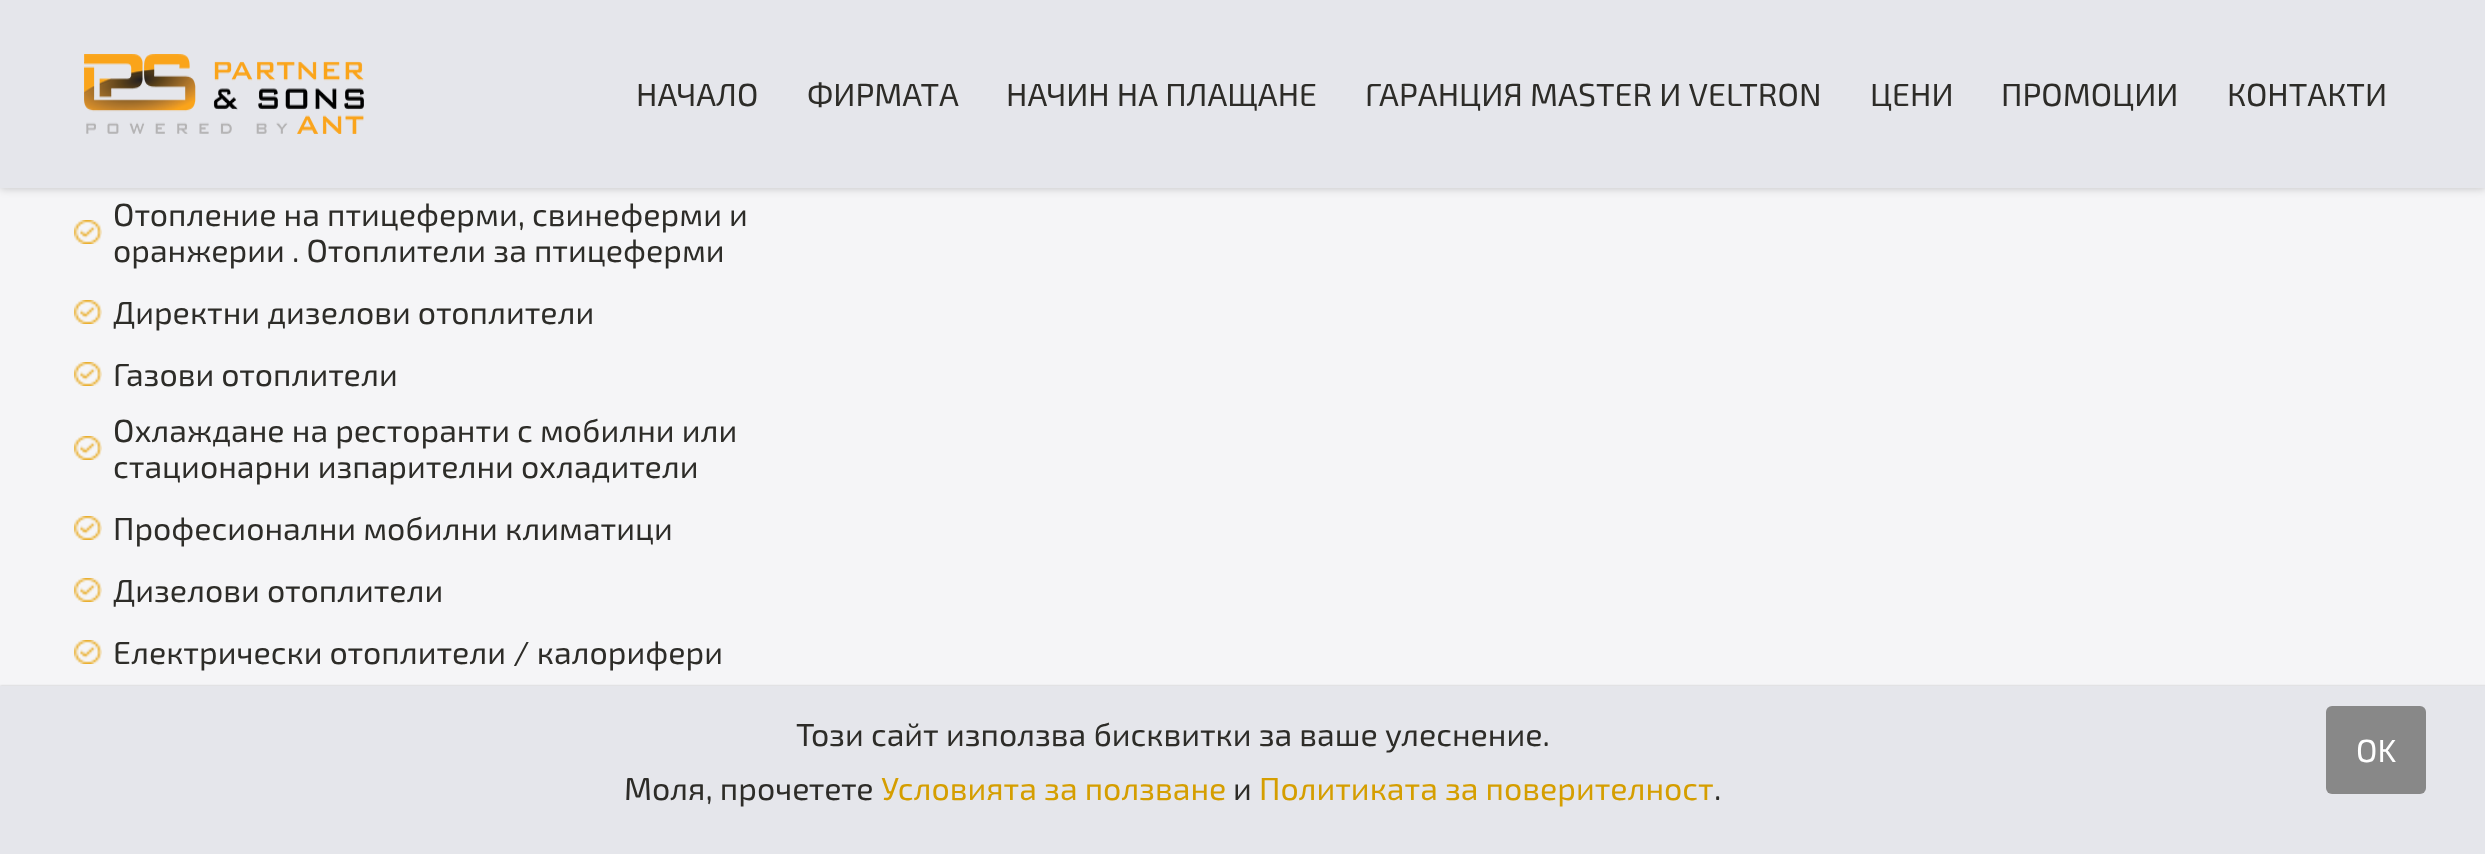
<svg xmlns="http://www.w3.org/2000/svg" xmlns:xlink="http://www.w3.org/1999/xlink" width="2485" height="854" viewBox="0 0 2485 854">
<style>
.cls-1{font:32px 'Exo 2';fill:#2d2c28}
.cls-2{font:32px 'Exo 2';fill:#d59e00}
.cls-3{font:32px 'Exo 2';fill:#ffffff}
</style>
<rect width="100%" height="100%" fill="#f5f5f7"/>
<rect fill="#000000" fill-opacity="0.22" filter="blur(5px)" x="0" y="0" width="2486" height="188"/>
<rect fill="#e5e6eb" x="0" y="0" width="2485" height="188"/>
<image xlink:href="image0.png" x="84" y="54" width="280" height="80"/>
<image xlink:href="image1.png" x="74" y="220" width="28" height="24"/>
<image xlink:href="image1.png" x="74" y="300" width="28" height="24"/>
<image xlink:href="image1.png" x="74" y="362" width="28" height="24"/>
<image xlink:href="image1.png" x="74" y="436" width="28" height="24"/>
<image xlink:href="image1.png" x="74" y="516" width="28" height="24"/>
<image xlink:href="image1.png" x="74" y="578" width="28" height="24"/>
<image xlink:href="image1.png" x="74" y="640" width="28" height="24"/>
<rect fill="#000000" fill-opacity="0.22" filter="blur(1px)" x="0" y="686" width="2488" height="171"/>
<rect fill="#e5e6eb" x="0" y="686" width="2485" height="168"/>
<rect fill="#888888" x="2326" y="706" width="100" height="88" rx="6"/>
<text class="cls-1" x="636" y="106">НАЧАЛО</text>
<text class="cls-1" x="807" y="106">ФИРМАТА</text>
<text class="cls-1" x="1006" y="106">НАЧИН НА ПЛАЩАНЕ</text>
<text class="cls-1" x="1365" y="106">ГАРАНЦИЯ MASTER И VELTRON</text>
<text class="cls-1" x="1870" y="106">ЦЕНИ</text>
<text class="cls-1" x="2001" y="106">ПРОМОЦИИ</text>
<text class="cls-1" x="2227" y="106">КОНТАКТИ</text>
<text class="cls-1"><tspan x="113" y="226">Отопление на птицеферми, свинеферми и</tspan><tspan x="113" y="262">оранжерии . Отоплители за птицеферми</tspan><tspan x="113" y="324">Директни дизелови отоплители</tspan><tspan x="113" y="386">Газови отоплители</tspan><tspan x="113" y="442">Охлаждане на ресторанти с мобилни или</tspan><tspan x="113" y="478">стационарни изпарителни охладители</tspan><tspan x="113" y="540">Професионални мобилни климатици</tspan><tspan x="113" y="602">Дизелови отоплители</tspan><tspan x="113" y="664">Електрически отоплители / калорифери</tspan></text>
<text class="cls-1" x="796" y="746">Този сайт използва бисквитки за ваше улеснение.</text>
<text class="cls-1" x="624" y="800">Моля, прочетете</text>
<text class="cls-2" x="881" y="800">Условията за ползване</text>
<text class="cls-1" x="1233" y="800">и</text>
<text class="cls-2" x="1259" y="800">Политиката за поверителност</text>
<text class="cls-1" x="1714" y="800">.</text>
<text class="cls-3" x="2356" y="762">OK</text>
</svg>
